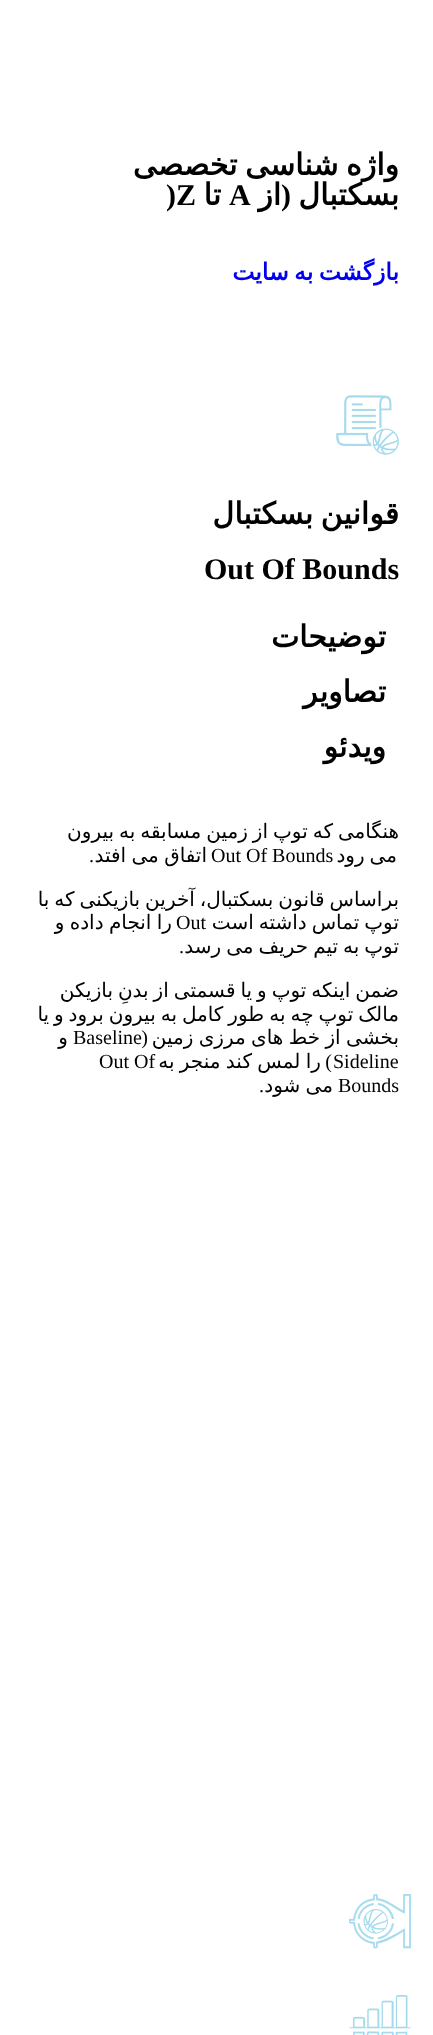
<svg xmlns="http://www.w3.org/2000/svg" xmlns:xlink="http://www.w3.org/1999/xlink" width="433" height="2035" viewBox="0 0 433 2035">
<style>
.cls-1{font:bold 30px DejaVu Sans;direction:rtl;fill:#000000}
.cls-2{font:bold 30px Liberation Serif;direction:rtl;fill:#000000}
.cls-3{font:bold 30px Liberation Serif;fill:#000000}
.cls-4{font:bold 23.5px DejaVu Sans;direction:rtl;fill:#0000ee}
.cls-5{font:20px DejaVu Sans;direction:rtl;fill:#000000}
.cls-6{font:20px Liberation Serif;fill:#000000}
.cls-7{font:20px Liberation Serif;direction:rtl;fill:#000000}
</style>
<rect width="100%" height="100%" fill="#ffffff"/>
<image xlink:href="image0.png" x="336" y="395" width="63" height="60"/>
<image xlink:href="image1.png" x="349" y="1894" width="62" height="55"/>
<image xlink:href="image2.png" x="349" y="1995" width="62" height="40"/>
<text class="cls-1"><tspan x="399" y="175" word-spacing="-2">واژه شناسی تخصصی</tspan><tspan x="399" y="205">بسکتبال</tspan></text>
<text class="cls-2" x="291" y="205">(</text>
<text class="cls-1" x="281" y="205">از</text>
<text class="cls-3" x="229" y="205">A</text>
<text class="cls-1" x="221" y="205">تا</text>
<text class="cls-3" x="166" y="205">)Z</text>
<text class="cls-4" x="399" y="280" word-spacing="-2">بازگشت به سایت</text>
<text class="cls-1" x="399" y="524" word-spacing="-2">قوانین بسکتبال</text>
<text class="cls-3" x="204" y="579">Out Of Bounds</text>
<text class="cls-1"><tspan x="386" y="647">توضیحات</tspan><tspan x="386" y="702">تصاویر</tspan><tspan x="386" y="757">ویدئو</tspan></text>
<text class="cls-5" x="399" y="838" word-spacing="-1.4">هنگامی که توپ از زمین مسابقه به بیرون</text>
<text class="cls-5" x="397" y="862" word-spacing="-1.4">می رود</text>
<text class="cls-6" x="211" y="862">Out Of Bounds</text>
<text class="cls-5" x="207" y="862" word-spacing="-1">اتفاق می افتد</text>
<text class="cls-7" x="94" y="862">.</text>
<text class="cls-5"><tspan x="399" y="906" word-spacing="-1.4">براساس قانون بسکتبال، آخرین بازیکنی که با</tspan><tspan x="399" y="929" word-spacing="-1.4">توپ تماس داشته است</tspan></text>
<text class="cls-6" x="176" y="929">Out</text>
<text class="cls-5" x="172" y="929" word-spacing="-1">را انجام داده و</text>
<text class="cls-5" x="399" y="953" word-spacing="-1.4">توپ به تیم حریف می رسد</text>
<text class="cls-7" x="184" y="953">.</text>
<text class="cls-5"><tspan x="399" y="997" word-spacing="-1.4">ضمن اینکه توپ و یا قسمتی از بدنِ بازیکن</tspan><tspan x="399" y="1021" word-spacing="-1.4">مالک توپ چه به طور کامل به بیرون برود و یا</tspan><tspan x="399" y="1044" word-spacing="-1">بخشی از خط های مرزی زمین</tspan></text>
<text class="cls-7" x="148" y="1044">(</text>
<text class="cls-6" x="73" y="1044">Baseline</text>
<text class="cls-5" x="68" y="1044">و</text>
<text class="cls-6" x="333" y="1068">Sideline</text>
<text class="cls-7" x="332" y="1068">)</text>
<text class="cls-5" x="321" y="1068" word-spacing="-1">را لمس کند منجر به</text>
<text class="cls-6" x="99" y="1068">Out Of</text>
<text class="cls-6" x="338" y="1092">Bounds</text>
<text class="cls-5" x="333" y="1092" word-spacing="-1">می شود</text>
<text class="cls-7" x="264" y="1092">.</text>
</svg>
